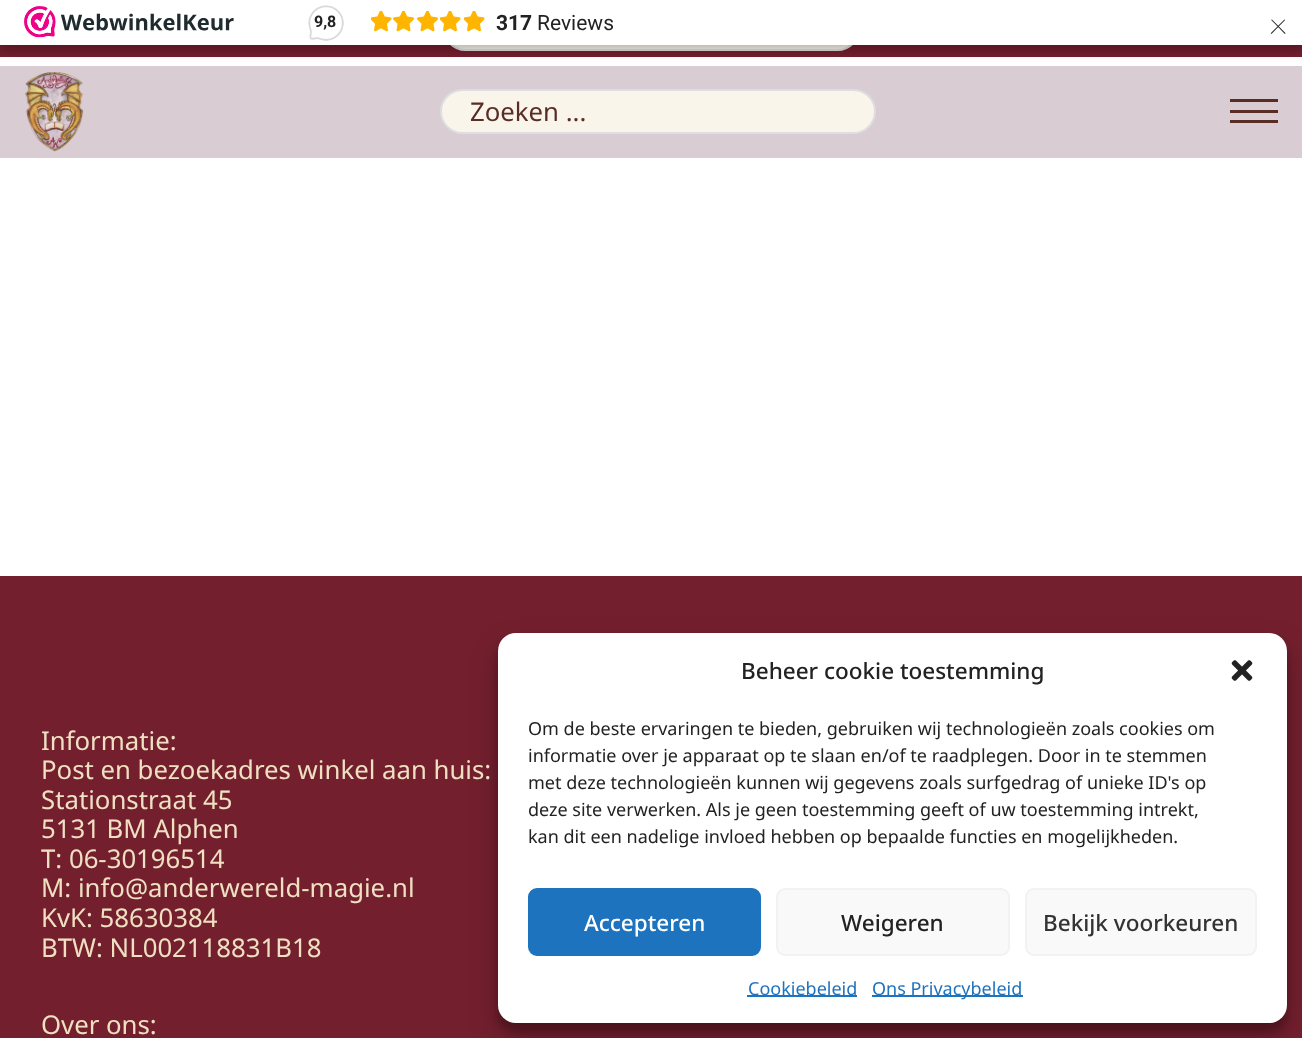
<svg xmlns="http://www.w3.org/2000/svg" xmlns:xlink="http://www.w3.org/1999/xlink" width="1302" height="1038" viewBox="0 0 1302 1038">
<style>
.cls-1{font:bold 16px Roboto;fill:#222222}
.cls-2{font:bold 21px Roboto;fill:#222222}
.cls-3{font:21px Roboto;fill:#222222}
.cls-4{font:100 36px Roboto;fill:#222222}
.cls-5{font:25.75px Noto Sans;fill:#592d24}
.cls-6{font:25.75px Noto Sans;fill:#efe0c2}
.cls-7{font:500 22.5px Noto Sans;fill:#222222}
.cls-8{font:18px Noto Sans;fill:#222222}
.cls-9{font:500 22.5px Noto Sans;fill:#ffffff}
.cls-10{font:500 22.5px Noto Sans;fill:#333333}
.cls-11{font:18px Noto Sans;fill:#1e73be}
</style>
<rect width="100%" height="100%" fill="#ffffff"/>
<rect fill="#731f2e" x="0" y="45" width="1302" height="12"/>
<rect fill="#faf5eb" stroke="#dddedf" stroke-width="2" x="444" y="7" width="415" height="43" rx="21.5"/>
<rect fill="#000000" fill-opacity="0.15" filter="blur(4.5px)" x="-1" y="-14" width="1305" height="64"/>
<rect fill="#d9ccd3" x="0" y="66" width="1302" height="92"/>
<rect fill="#000000" fill-opacity="0.15" filter="blur(7.5px)" x="0" y="3" width="1302" height="45"/>
<rect fill="#ffffff" x="0" y="0" width="1302" height="45"/>
<image xlink:href="image0.png" x="24" y="6" width="210" height="32"/>
<image xlink:href="image1.png" x="308" y="5" width="36" height="36"/>
<image xlink:href="image2.png" x="371" y="11" width="21" height="21"/>
<image xlink:href="image3.png" x="393" y="11" width="21" height="21"/>
<image xlink:href="image3.png" x="417" y="11" width="21" height="21"/>
<image xlink:href="image2.png" x="440" y="11" width="21" height="21"/>
<image xlink:href="image2.png" x="464" y="11" width="21" height="21"/>
<image xlink:href="image4.png" x="25" y="72" width="59" height="80"/>
<rect fill="#faf5eb" stroke="#dddedf" stroke-width="2" x="441" y="90" width="434" height="43" rx="21.5"/>
<rect fill="#592d24" x="1230" y="99" width="48" height="3"/>
<rect fill="#592d24" x="1230" y="110" width="48" height="3"/>
<rect fill="#592d24" x="1230" y="120" width="48" height="3"/>
<rect fill="#731f2e" x="0" y="576" width="1302" height="462"/>
<rect fill="#000000" fill-opacity="0.23" filter="blur(4.5px)" x="498" y="642" width="789" height="390" rx="18"/>
<rect fill="#000000" fill-opacity="0.19" filter="blur(15px)" x="498" y="648" width="789" height="390" rx="18"/>
<rect fill="#ffffff" x="498" y="633" width="789" height="390" rx="18"/>
<image xlink:href="image5.png" x="1231" y="660" width="22" height="21"/>
<rect fill="#1e73be" stroke="#1e73be" stroke-width="2" x="529" y="889" width="231" height="66" rx="8"/>
<rect fill="#f9f9f9" stroke="#f2f2f2" stroke-width="2" x="777" y="889" width="232" height="66" rx="8"/>
<rect fill="#f9f9f9" stroke="#f2f2f2" stroke-width="2" x="1026" y="889" width="230" height="66" rx="8"/>
<rect fill="#1e73be" x="747" y="995" width="110" height="2"/>
<rect fill="#1e73be" x="872" y="995" width="151" height="2"/>
<text class="cls-1" x="314" y="27">9,8</text>
<text class="cls-2" x="496" y="30">317</text>
<text class="cls-3" x="537" y="30">Reviews</text>
<text class="cls-4" x="1269" y="34">×</text>
<text class="cls-5" x="470" y="121">Zoeken ...</text>
<text class="cls-6"><tspan x="41" y="750">Informatie:</tspan><tspan x="41" y="779">Post en bezoekadres winkel aan huis:</tspan><tspan x="41" y="809">Stationstraat 45</tspan><tspan x="41" y="838">5131 BM Alphen</tspan><tspan x="41" y="868">T: 06-30196514</tspan><tspan x="41" y="897">M: info@anderwereld-magie.nl</tspan><tspan x="41" y="927">KvK: 58630384</tspan><tspan x="41" y="957">BTW: NL002118831B18</tspan></text>
<text class="cls-6" x="41" y="1034">Over ons:</text>
<text class="cls-7" x="741" y="679">Beheer cookie toestemming</text>
<text class="cls-8"><tspan x="528" y="735">Om de beste ervaringen te bieden, gebruiken wij technologieën zoals cookies om</tspan><tspan x="528" y="762">informatie over je apparaat op te slaan en/of te raadplegen. Door in te stemmen</tspan><tspan x="528" y="789">met deze technologieën kunnen wij gegevens zoals surfgedrag of unieke ID's op</tspan><tspan x="528" y="816">deze site verwerken. Als je geen toestemming geeft of uw toestemming intrekt,</tspan><tspan x="528" y="843">kan dit een nadelige invloed hebben op bepaalde functies en mogelijkheden.</tspan></text>
<text class="cls-9" x="584" y="931">Accepteren</text>
<text class="cls-7" x="841" y="931">Weigeren</text>
<text class="cls-10" x="1043" y="931">Bekijk voorkeuren</text>
<text class="cls-11" x="748" y="995">Cookiebeleid</text>
<text class="cls-11" x="872" y="995">Ons Privacybeleid</text>
</svg>
